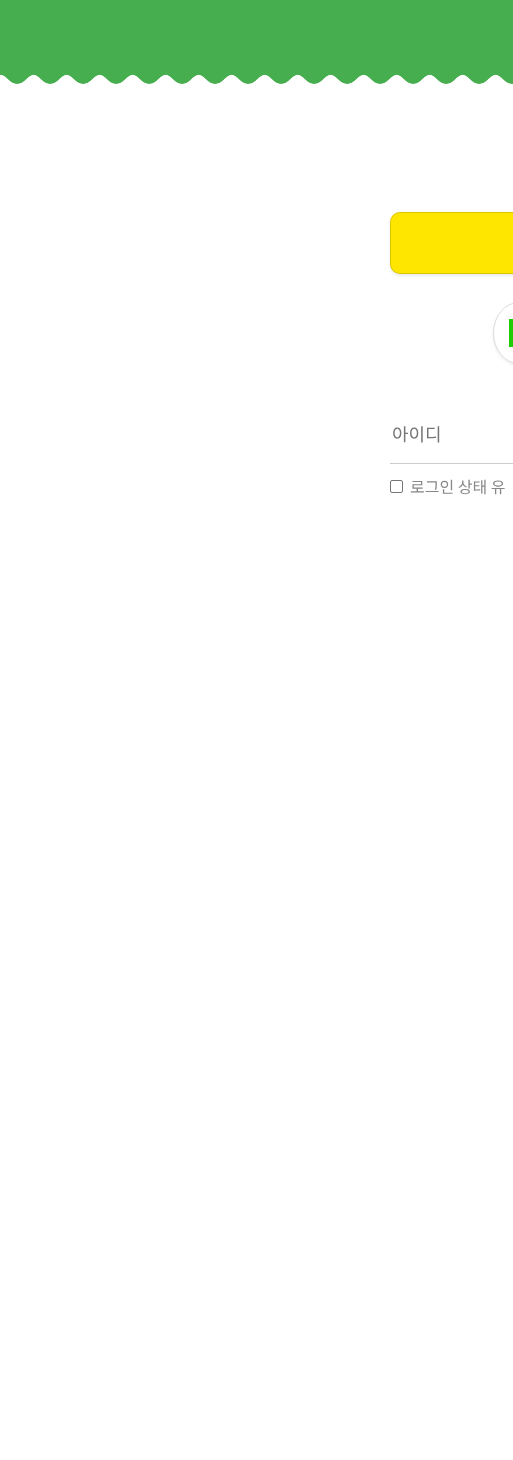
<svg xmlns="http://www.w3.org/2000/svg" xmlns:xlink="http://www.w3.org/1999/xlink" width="513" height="1460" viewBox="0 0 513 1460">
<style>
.cls-1{font:18px Noto Sans KR;fill:#757575}
.cls-2{font:16px Noto Sans KR;fill:#888888}
</style>
<rect width="100%" height="100%" fill="#ffffff"/>
<image xlink:href="image0.png" x="0" y="0" width="513" height="84"/>
<rect fill="#000000" fill-opacity="0.08" filter="blur(1.5px)" x="390" y="214" width="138" height="62" rx="10"/>
<rect fill="#ffe600" x="390" y="212" width="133" height="62" rx="10"/>
<rect fill="none" stroke="#000000" stroke-opacity="0.14" x="390.5" y="212.5" width="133" height="61" rx="9.5"/>
<rect fill="#000000" fill-opacity="0.08" filter="blur(1.5px)" x="493" y="304" width="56" height="62" rx="31"/>
<rect fill="#ffffff" x="493" y="302" width="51" height="62" rx="31"/>
<rect fill="none" stroke="#000000" stroke-opacity="0.14" x="493.5" y="302.5" width="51" height="61" rx="30.5"/>
<rect fill="#1dcc01" x="509" y="319" width="4" height="28"/>
<rect fill="#cccccc" x="390" y="463" width="123" height="1"/>
<rect fill="none" stroke="#767676" x="390.5" y="480.5" width="12" height="12" rx="1.5"/>
<text class="cls-1" x="392" y="441">아이디</text>
<text class="cls-2" x="410" y="493">로그인 상태 유</text>
</svg>
